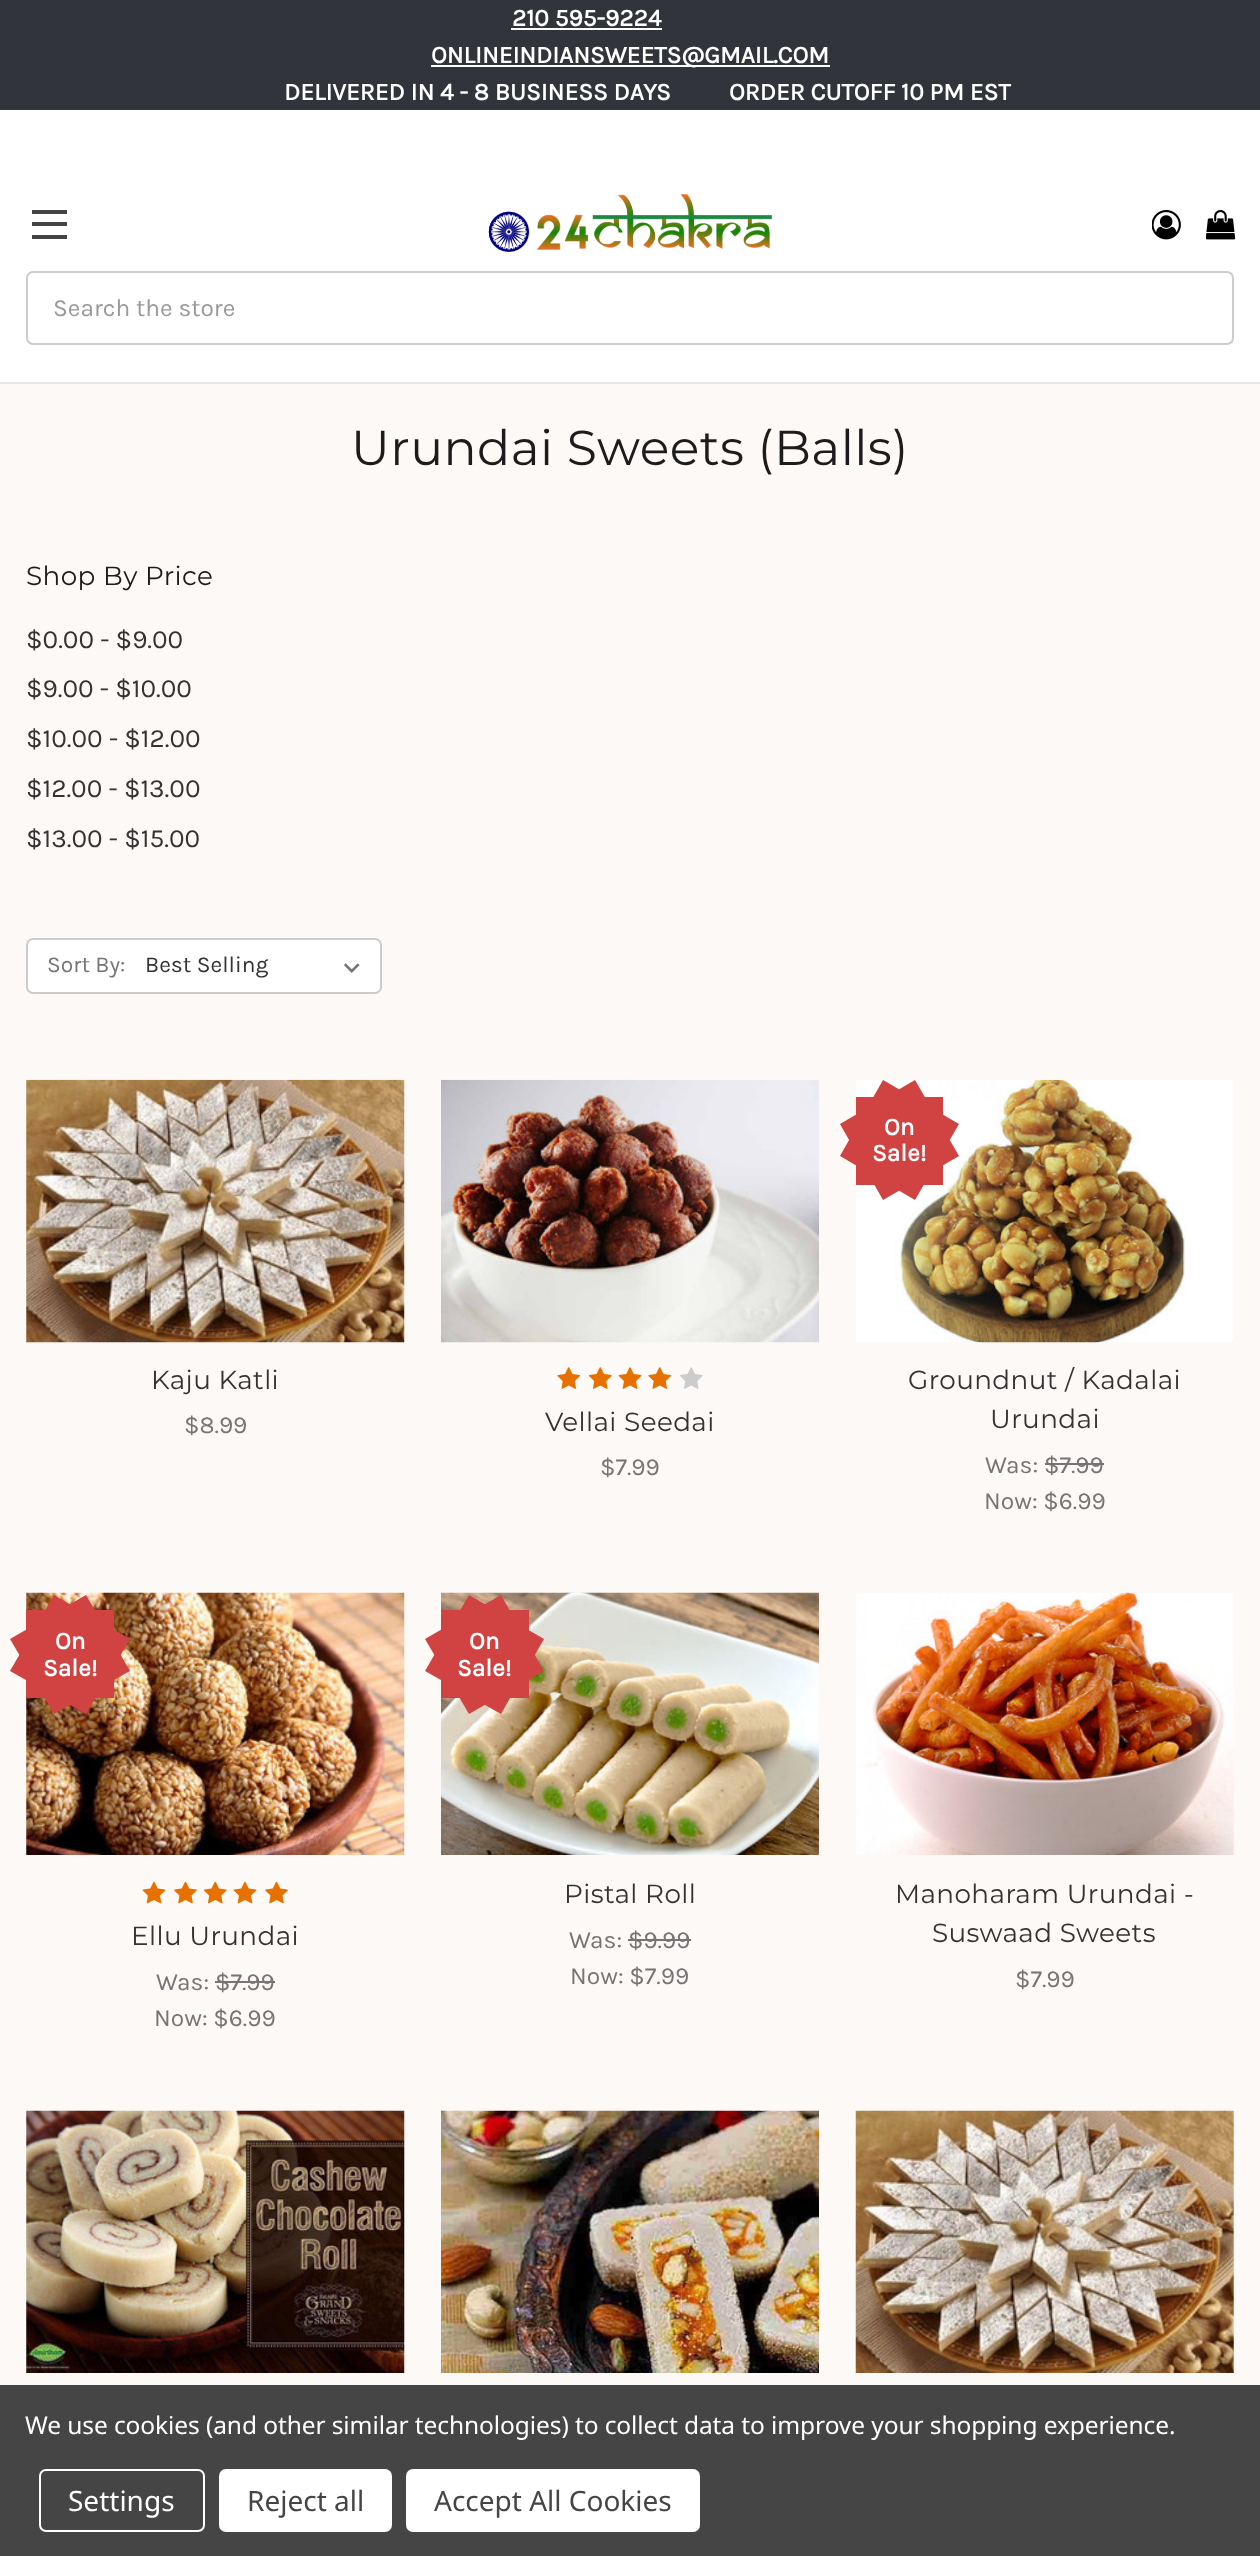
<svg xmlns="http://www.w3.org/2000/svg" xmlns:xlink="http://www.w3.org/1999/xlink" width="1260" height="2556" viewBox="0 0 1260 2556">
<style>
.cls-1{font:bold 24.5px Karla;fill:#ffffff}
.cls-2{font:24.5px Karla;fill:#999999}
.cls-3{font:49px Montserrat;letter-spacing:0.4px;fill:#1c1c1c}
.cls-4{font:26.25px Montserrat;letter-spacing:0.4px;fill:#1c1c1c}
.cls-5{font:26.25px Karla;fill:#333333}
.cls-6{font:22.75px Karla;fill:#757575}
.cls-7{font:22.75px Karla;fill:#333333}
.cls-8{font:26.25px Montserrat;letter-spacing:0.4px;fill:#333333}
.cls-9{font:24.5px Karla;fill:#757575}
.cls-10{font:24.5px Noto Sans;letter-spacing:-0.09px;fill:#ffffff}
.cls-11{font:28px Noto Sans;fill:#ffffff}
.cls-12{font:28px Noto Sans;fill:#454545}
</style>
<rect width="100%" height="100%" fill="#fdf9f6"/>
<rect fill="#ffffff" x="0" y="110" width="1260" height="272"/>
<rect fill="#e5e5e5" x="0" y="382" width="1260" height="2"/>
<rect fill="#31343b" x="0" y="0" width="1260" height="110"/>
<rect fill="#ffffff" x="511" y="28" width="151" height="2"/>
<rect fill="#ffffff" x="431" y="65" width="399" height="2"/>
<rect fill="#444444" x="32" y="222" width="35" height="4"/>
<rect fill="#444444" x="32" y="210" width="35" height="4"/>
<rect fill="#444444" x="32" y="235" width="35" height="4"/>
<image xlink:href="image0.png" x="1152" y="210" width="29" height="30"/>
<image xlink:href="image1.png" x="1206" y="210" width="30" height="30"/>
<image xlink:href="image2.png" x="488" y="194" width="284" height="58"/>
<rect fill="none" stroke="#cccccc" stroke-width="2" x="27" y="272" width="1206" height="72" rx="6"/>
<rect fill="#ffffff" stroke="#cccccc" stroke-width="2" x="27" y="939" width="354" height="54" rx="6"/>
<image xlink:href="image3.png" x="344" y="963" width="16" height="10"/>
<image xlink:href="image4.png" x="26" y="1079" width="379" height="264"/>
<rect fill="#ffffff" x="856" y="1080" width="378" height="262"/>
<image xlink:href="image5.png" x="894" y="1079" width="293" height="264"/>
<rect fill="#d14343" x="856" y="1097" width="87" height="88"/>
<path fill="#d14343" d="M883 1080L959 1124L915 1200L840 1156Z"/>
<path fill="#d14343" d="M915 1080L959 1156L883 1200L840 1124Z"/>
<rect fill="#757575" x="1045" y="1463" width="59" height="2"/>
<image xlink:href="image6.png" x="441" y="1079" width="378" height="264"/>
<image xlink:href="image7.png" x="557" y="1367" width="24" height="22"/>
<image xlink:href="image8.png" x="588" y="1367" width="24" height="22"/>
<image xlink:href="image9.png" x="618" y="1367" width="24" height="22"/>
<image xlink:href="image7.png" x="648" y="1367" width="24" height="22"/>
<image xlink:href="image10.png" x="680" y="1367" width="23" height="22"/>
<image xlink:href="image11.png" x="26" y="1592" width="379" height="263"/>
<rect fill="#d14343" x="26" y="1610" width="88" height="88"/>
<path fill="#d14343" d="M54 1595L130 1639L86 1714L10 1671Z"/>
<path fill="#d14343" d="M86 1595L130 1671L54 1714L10 1639Z"/>
<image xlink:href="image12.png" x="142" y="1881" width="24" height="23"/>
<image xlink:href="image13.png" x="174" y="1881" width="23" height="23"/>
<image xlink:href="image14.png" x="203" y="1881" width="24" height="23"/>
<image xlink:href="image12.png" x="233" y="1881" width="24" height="23"/>
<image xlink:href="image13.png" x="265" y="1881" width="23" height="23"/>
<rect fill="#757575" x="215" y="1981" width="60" height="2"/>
<image xlink:href="image15.png" x="441" y="1592" width="378" height="263"/>
<rect fill="#d14343" x="441" y="1610" width="88" height="88"/>
<path fill="#d14343" d="M469 1595L544 1639L501 1714L425 1671Z"/>
<path fill="#d14343" d="M501 1595L544 1671L469 1714L425 1639Z"/>
<rect fill="#757575" x="628" y="1939" width="63" height="2"/>
<image xlink:href="image16.png" x="856" y="1592" width="378" height="263"/>
<image xlink:href="image17.png" x="26" y="2110" width="379" height="263"/>
<image xlink:href="image18.png" x="441" y="2110" width="378" height="263"/>
<image xlink:href="image19.png" x="855" y="2110" width="379" height="263"/>
<rect fill="#454545" x="0" y="2385" width="1260" height="171"/>
<rect fill="none" stroke="#ffffff" stroke-width="2" x="40" y="2470" width="164" height="61" rx="6"/>
<rect fill="#ffffff" x="219" y="2469" width="173" height="63" rx="7"/>
<rect fill="#ffffff" x="406" y="2469" width="294" height="63" rx="7"/>
<text class="cls-1" x="512" y="26">210 595-9224</text>
<text class="cls-1" x="431" y="63">ONLINEINDIANSWEETS@GMAIL.COM</text>
<text class="cls-1" xml:space="preserve" x="284" y="100">DELIVERED IN 4 - 8 BUSINESS DAYS          ORDER CUTOFF 10 PM EST</text>
<text class="cls-2" x="53" y="316">Search the store</text>
<text class="cls-3" x="351" y="465">Urundai Sweets (Balls)</text>
<text class="cls-4" x="26" y="585">Shop By Price</text>
<text class="cls-5"><tspan x="26" y="648">$0.00 - $9.00</tspan><tspan x="26" y="697">$9.00 - $10.00</tspan><tspan x="26" y="747">$10.00 - $12.00</tspan><tspan x="26" y="797">$12.00 - $13.00</tspan><tspan x="26" y="847">$13.00 - $15.00</tspan></text>
<text class="cls-6" x="47" y="972">Sort By:</text>
<text class="cls-7" x="145" y="972">Best Selling</text>
<text class="cls-8" x="151" y="1389">Kaju Katli</text>
<text class="cls-9" x="184" y="1433">$8.99</text>
<text class="cls-1" x="884" y="1135">On</text>
<text class="cls-1" x="872" y="1161">Sale!</text>
<text class="cls-8" x="908" y="1389">Groundnut / Kadalai</text>
<text class="cls-8" x="990" y="1428">Urundai</text>
<text class="cls-9" x="985" y="1473">Was: $7.99</text>
<text class="cls-9" x="984" y="1509">Now: $6.99</text>
<text class="cls-8" x="545" y="1431">Vellai Seedai</text>
<text class="cls-9" x="600" y="1475">$7.99</text>
<text class="cls-1" x="55" y="1649">On</text>
<text class="cls-1" x="43" y="1676">Sale!</text>
<text class="cls-8" x="131" y="1945">Ellu Urundai</text>
<text class="cls-9" x="156" y="1990">Was: $7.99</text>
<text class="cls-9" x="154" y="2026">Now: $6.99</text>
<text class="cls-1" x="469" y="1649">On</text>
<text class="cls-1" x="457" y="1676">Sale!</text>
<text class="cls-8" x="564" y="1903">Pistal Roll</text>
<text class="cls-9" x="569" y="1948">Was: $9.99</text>
<text class="cls-9" x="570" y="1984">Now: $7.99</text>
<text class="cls-8" x="895" y="1903">Manoharam Urundai -</text>
<text class="cls-8" x="932" y="1942">Suswaad Sweets</text>
<text class="cls-9" x="1015" y="1987">$7.99</text>
<text class="cls-10" x="25" y="2434">We use cookies (and other similar technologies) to collect data to improve your shopping experience.</text>
<text class="cls-11" x="68" y="2511">Settings</text>
<text class="cls-12" x="247" y="2511">Reject all</text>
<text class="cls-12" x="434" y="2511">Accept All Cookies</text>
</svg>
